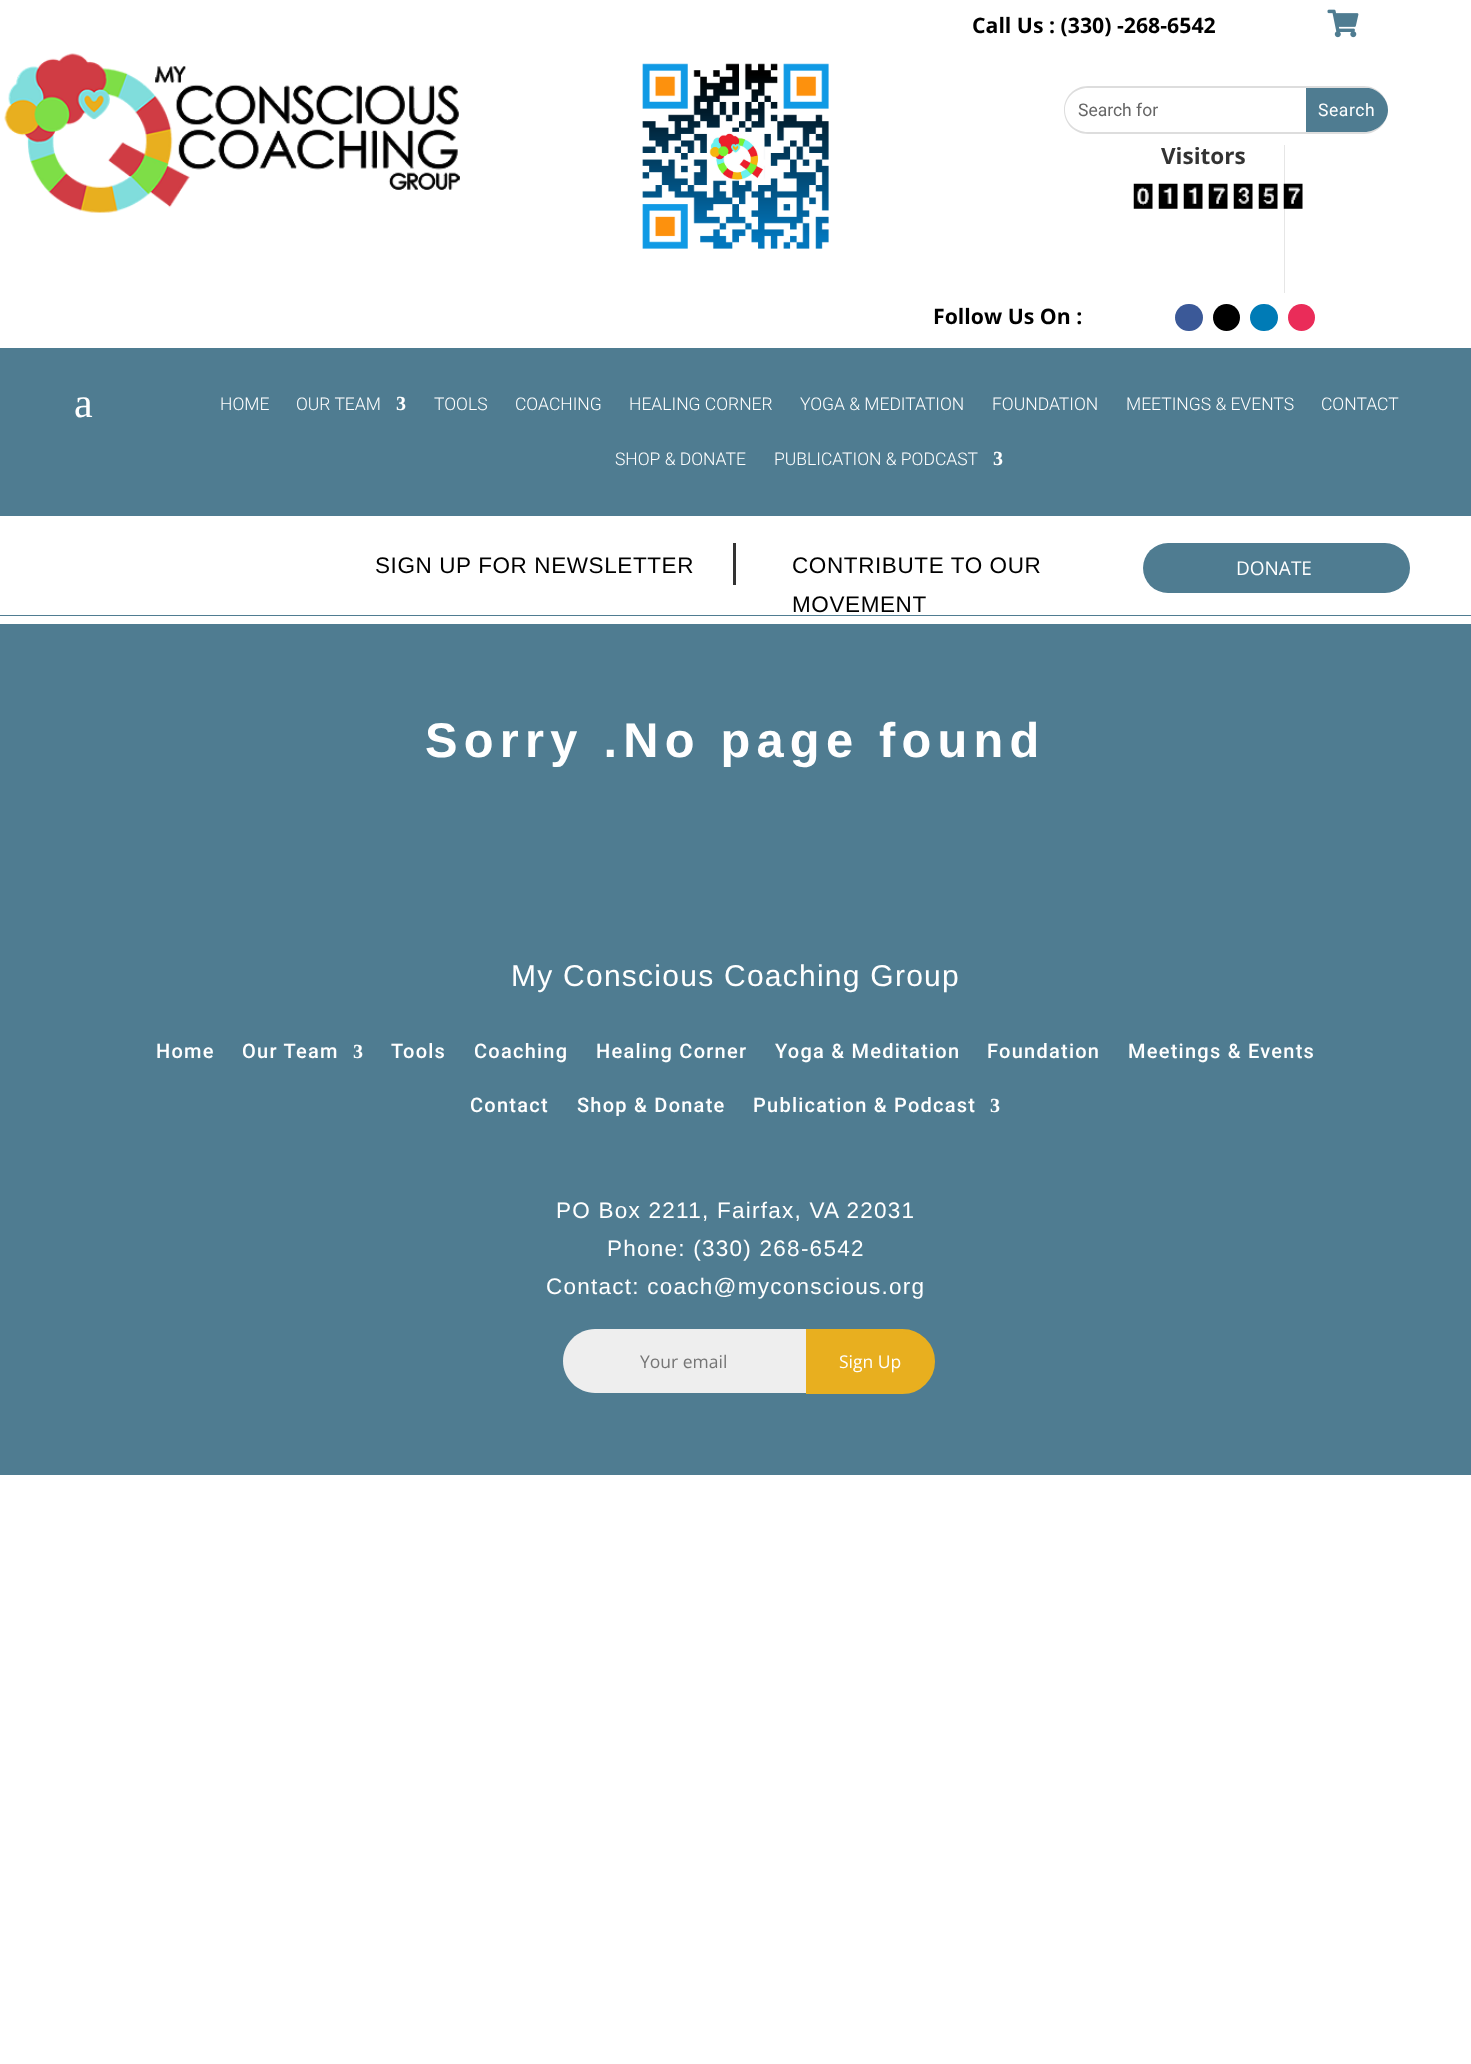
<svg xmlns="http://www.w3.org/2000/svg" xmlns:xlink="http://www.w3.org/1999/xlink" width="1471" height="2064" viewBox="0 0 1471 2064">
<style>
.cls-1{font:bold 21.25px Open Sans;fill:#000000}
.cls-2{font:17.5px Roboto;fill:#666666}
.cls-3{font:17.5px Roboto;letter-spacing:0.6px;fill:#ffffff}
.cls-4{font:bold 22.5px Open Sans;fill:#333333}
.cls-5{font:42px Liberation Serif;fill:#ffffff}
.cls-6{font:300 17.5px Roboto;fill:#ffffff}
.cls-7{font:bold 20px Liberation Serif;fill:#ffffff}
.cls-8{font:22.5px Liberation Sans;letter-spacing:0.6px;fill:#000000}
.cls-9{font:19px Open Sans;fill:#ffffff}
.cls-10{font:bold 48.75px Liberation Sans;letter-spacing:6.25px;fill:#ffffff}
.cls-11{font:30px Liberation Sans;letter-spacing:1.25px;fill:#ffffff}
.cls-12{font:500 20px Roboto;letter-spacing:1.25px;fill:#ffffff}
.cls-13{font:bold 20px Liberation Serif;letter-spacing:1.25px;fill:#ffffff}
.cls-14{font:22.5px Liberation Sans;letter-spacing:1.25px;fill:#ffffff}
.cls-15{font:17.5px Open Sans;fill:#757575}
.cls-16{font:17.5px Open Sans;fill:#ffffff}
</style>
<rect width="100%" height="100%" fill="#ffffff"/>
<image xlink:href="image0.png" x="1327" y="9" width="32" height="29"/>
<image xlink:href="image1.png" x="4" y="53" width="456" height="160"/>
<image xlink:href="image2.png" x="642" y="63" width="187" height="186"/>
<path fill="#dddddd" fill-rule="evenodd" d="M1088 86H1364C1377 86 1388 97 1388 110C1388 123 1377 134 1364 134H1088C1074 134 1064 123 1064 110C1064 97 1074 86 1088 86ZM1088 88H1364C1377 88 1388 98 1388 110C1388 122 1377 132 1364 132H1088C1075 132 1065 122 1065 110C1065 98 1075 88 1088 88Z"/>
<path fill="#4f7c91" d="M1306 88H1369C1379 90 1388 99 1388 110C1388 122 1377 132 1364 132H1306Z"/>
<rect fill="#e6e6e6" x="1284" y="145" width="1" height="148"/>
<image xlink:href="image3.png" x="1133" y="183" width="20" height="26"/>
<image xlink:href="image4.png" x="1158" y="183" width="20" height="26"/>
<image xlink:href="image5.png" x="1183" y="183" width="20" height="26"/>
<image xlink:href="image6.png" x="1208" y="183" width="20" height="26"/>
<image xlink:href="image7.png" x="1233" y="183" width="20" height="26"/>
<image xlink:href="image8.png" x="1258" y="183" width="20" height="26"/>
<image xlink:href="image9.png" x="1283" y="183" width="20" height="26"/>
<rect fill="#3b5998" x="1175" y="304" width="28" height="27" rx="13.5"/>
<circle fill="#000000" cx="1226.5" cy="317.5" r="13.5"/>
<rect fill="#007bb6" x="1250" y="304" width="28" height="27" rx="13.5"/>
<circle fill="#ea2c59" cx="1301.5" cy="317.5" r="13.5"/>
<rect fill="#4f7c91" x="0" y="348" width="1471" height="168"/>
<rect fill="#4f7c91" x="0" y="615" width="1471" height="1"/>
<rect fill="#333333" x="733" y="543" width="3" height="42"/>
<rect fill="#4f7c91" x="1143" y="543" width="267" height="50" rx="25"/>
<rect fill="#4f7c91" x="0" y="624" width="1471" height="851"/>
<path fill="#eeeeee" d="M595 1329H806V1393H595C577.5 1393 563 1378.5 563 1361C563 1343.5 577.5 1329 595 1329Z"/>
<path fill="#e8af1f" stroke="#e8af1f" stroke-width="3" d="M807.5 1330.5H902.5C919.5 1330.5 933.5 1344.5 933.5 1361.5C933.5 1378.5 919.5 1392.5 902.5 1392.5H807.5Z"/>
<text class="cls-1" x="972" y="33">Call Us : (330) -268-6542</text>
<text class="cls-2" x="1078" y="116">Search for</text>
<text class="cls-3" x="1318" y="116">Search</text>
<text class="cls-4" x="1161" y="164">Visitors</text>
<text class="cls-1" x="933" y="324">Follow Us On :</text>
<text class="cls-5" x="74" y="417">a</text>
<text class="cls-6" x="220" y="410">HOME</text>
<text class="cls-6" x="296" y="410">OUR TEAM</text>
<text class="cls-7" x="396" y="410">3</text>
<text class="cls-6" x="434" y="410">TOOLS</text>
<text class="cls-6" x="515" y="410">COACHING</text>
<text class="cls-6" x="629" y="410">HEALING CORNER</text>
<text class="cls-6" x="800" y="410">YOGA &amp; MEDITATION</text>
<text class="cls-6" x="992" y="410">FOUNDATION</text>
<text class="cls-6" x="1126" y="410">MEETINGS &amp; EVENTS</text>
<text class="cls-6" x="1321" y="410">CONTACT</text>
<text class="cls-6" x="615" y="465">SHOP &amp; DONATE</text>
<text class="cls-6" x="774" y="465">PUBLICATION &amp; PODCAST</text>
<text class="cls-7" x="993" y="465">3</text>
<text class="cls-8" x="375" y="573">SIGN UP FOR NEWSLETTER</text>
<text class="cls-8"><tspan x="792" y="573">CONTRIBUTE TO OUR</tspan><tspan x="792" y="612">MOVEMENT</tspan></text>
<text class="cls-9" x="1236" y="575">DONATE</text>
<text class="cls-10" x="425" y="757">Sorry .No page found</text>
<text class="cls-11" x="511" y="986">My Conscious Coaching Group</text>
<text class="cls-12" x="156" y="1058">Home</text>
<text class="cls-12" x="242" y="1058">Our Team</text>
<text class="cls-13" x="353" y="1058">3</text>
<text class="cls-12" x="391" y="1058">Tools</text>
<text class="cls-12" x="474" y="1058">Coaching</text>
<text class="cls-12" x="596" y="1058">Healing Corner</text>
<text class="cls-12" x="775" y="1058">Yoga &amp; Meditation</text>
<text class="cls-12" x="987" y="1058">Foundation</text>
<text class="cls-12" x="1128" y="1058">Meetings &amp; Events</text>
<text class="cls-12" x="470" y="1112">Contact</text>
<text class="cls-12" x="577" y="1112">Shop &amp; Donate</text>
<text class="cls-12" x="753" y="1112">Publication &amp; Podcast</text>
<text class="cls-13" x="990" y="1112">3</text>
<text class="cls-14" x="556" y="1218">PO Box 2211, Fairfax, VA 22031</text>
<text class="cls-14" x="607" y="1256">Phone: (330) 268-6542</text>
<text class="cls-14" x="546" y="1294">Contact: coach@myconscious.org</text>
<text class="cls-15" x="640" y="1368">Your email</text>
<text class="cls-16" x="839" y="1368">Sign Up</text>
</svg>
